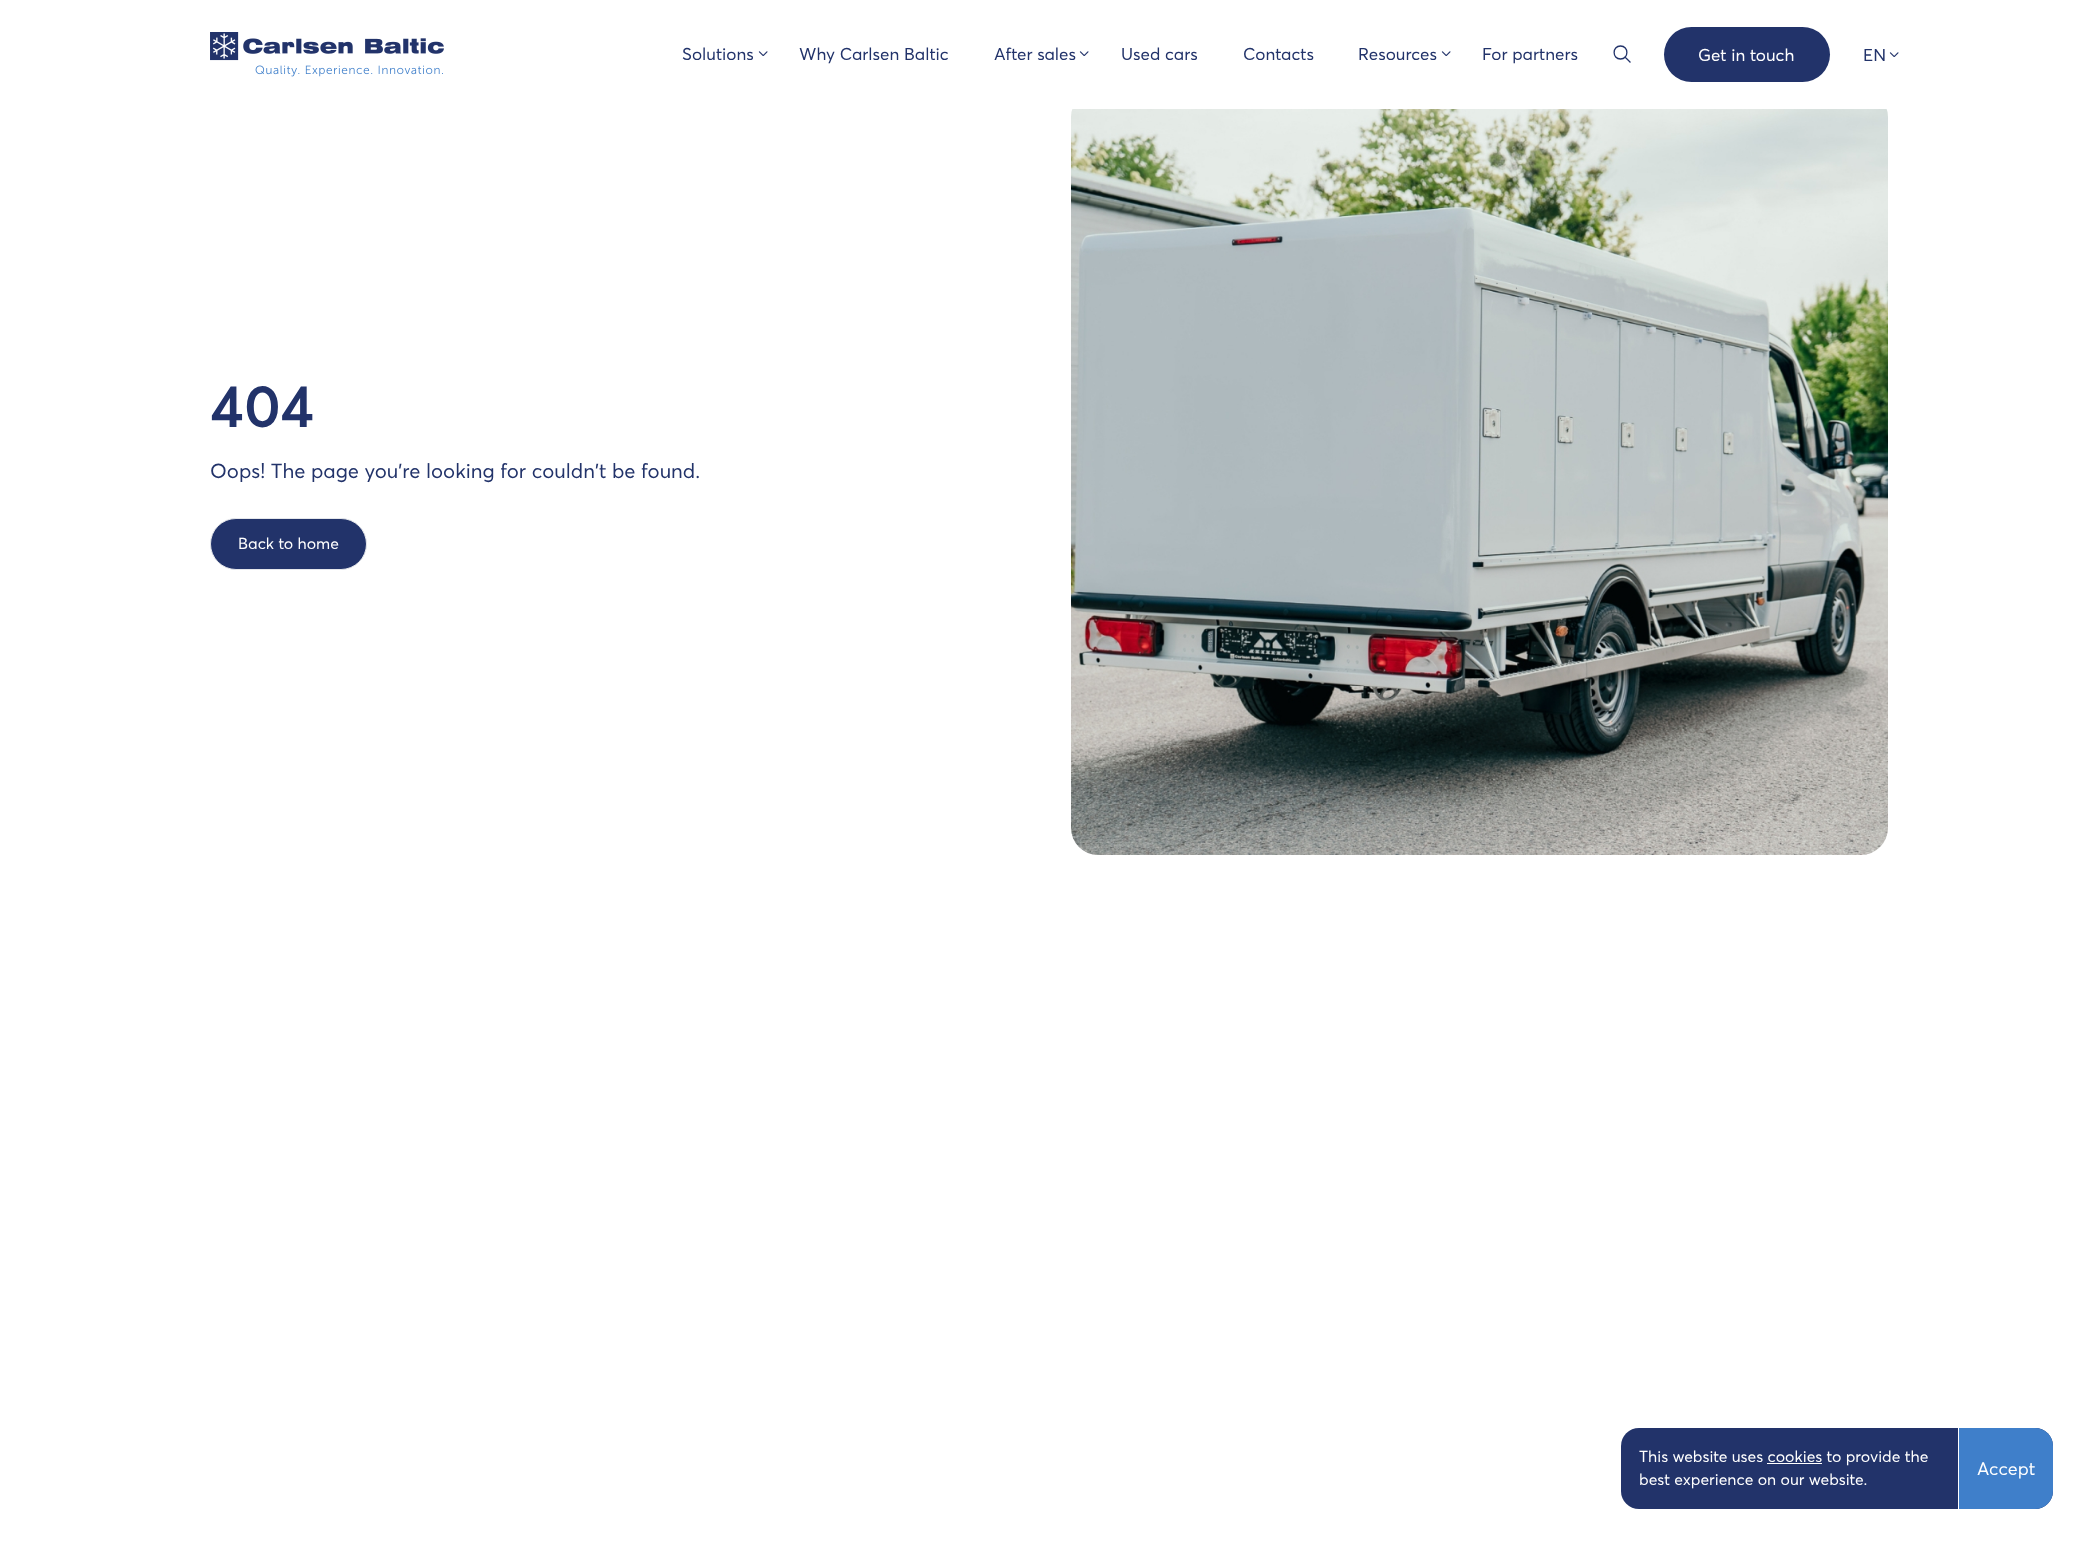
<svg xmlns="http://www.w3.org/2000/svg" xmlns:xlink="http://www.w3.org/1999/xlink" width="2098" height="1554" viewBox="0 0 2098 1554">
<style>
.cls-1{font:17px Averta;fill:#22336a}
.cls-2{font:17px Averta;fill:#ffffff}
.cls-3{font:600 59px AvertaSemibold;fill:#22336a}
.cls-4{font:20.25px Averta;fill:#22336a}
.cls-5{font:15.75px Averta;fill:#ffffff}
.cls-6{font:18px Averta;fill:#ffffff}
</style>
<rect width="100%" height="100%" fill="#ffffff"/>
<image xlink:href="image0.png" x="210" y="32" width="234" height="45"/>
<image xlink:href="image1.png" x="758" y="51" width="10" height="5"/>
<image xlink:href="image1.png" x="1079" y="51" width="10" height="5"/>
<image xlink:href="image1.png" x="1441" y="51" width="10" height="5"/>
<path fill="none" stroke="#22336a" stroke-width="1.3" stroke-linecap="square" d="M1630 62L1625 57M1620.5 59C1629 59 1629 46 1620.5 46C1612 46 1612 59 1620.5 59Z"/>
<rect fill="#22336a" x="1664" y="27" width="166" height="55" rx="27.5"/>
<image xlink:href="image1.png" x="1889" y="52" width="10" height="5"/>
<rect fill="#22336a" stroke="#e5e7eb" x="210.5" y="518.5" width="156" height="51" rx="25.5"/>
<image xlink:href="image2.png" x="1071" y="109" width="817" height="746"/>
<rect fill="#22336a" x="1621" y="1428" width="432" height="81" rx="18"/>
<rect fill="#ffffff" x="1958" y="1428" width="1" height="81"/>
<rect fill="#ffffff" x="1767" y="1463" width="55" height="1"/>
<path fill="#3f7fca" d="M1959 1428H2035C2045 1428 2053 1436 2053 1446V1491C2053 1501 2045 1509 2035 1509H1959Z"/>
<text class="cls-1" x="682" y="60">Solutions</text>
<text class="cls-1" x="799" y="60">Why Carlsen Baltic</text>
<text class="cls-1" x="994" y="60">After sales</text>
<text class="cls-1" x="1121" y="60">Used cars</text>
<text class="cls-1" x="1243" y="60">Contacts</text>
<text class="cls-1" x="1358" y="60">Resources</text>
<text class="cls-1" x="1482" y="60">For partners</text>
<text class="cls-2" x="1698" y="61">Get in touch</text>
<text class="cls-1" x="1863" y="61">EN</text>
<text class="cls-3" x="210" y="427">404</text>
<text class="cls-4" x="210" y="478">Oops! The page you're looking for couldn't be found.</text>
<text class="cls-5" x="238" y="549">Back to home</text>
<text class="cls-5"><tspan x="1639" y="1462">This website uses cookies to provide the</tspan><tspan x="1639" y="1485">best experience on our website.</tspan></text>
<text class="cls-6" x="1977" y="1475">Accept</text>
</svg>
